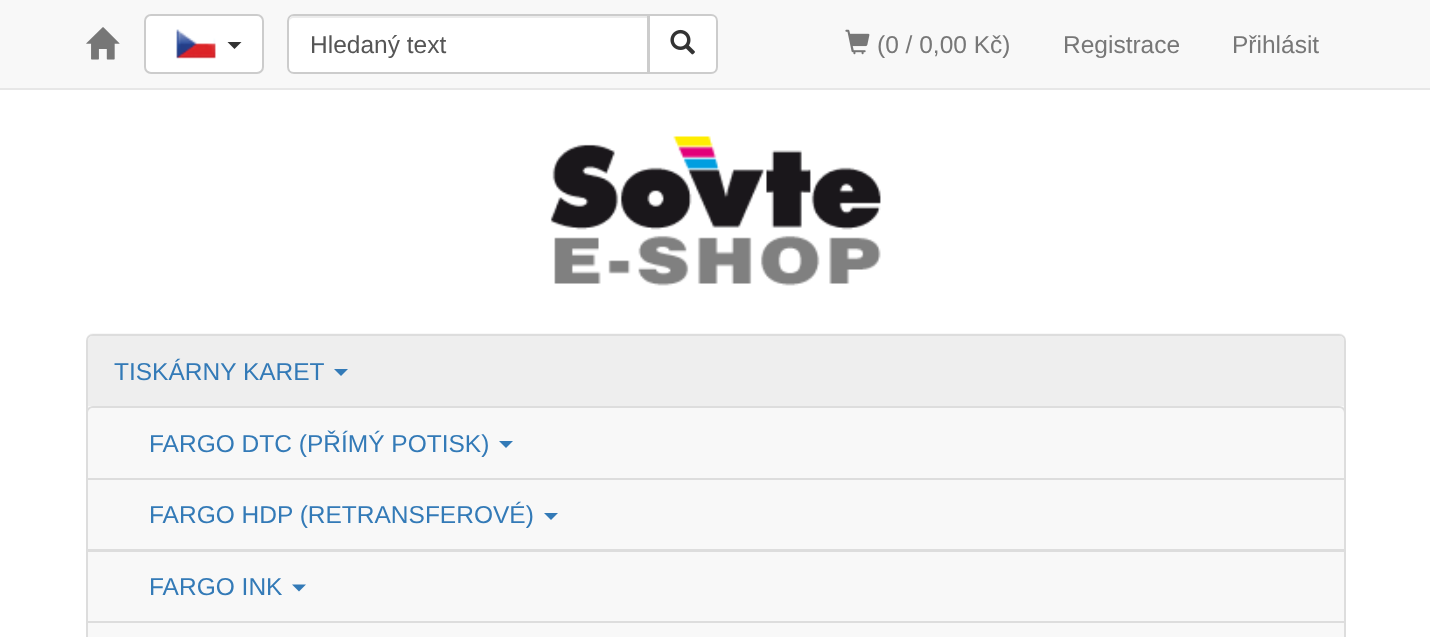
<svg xmlns="http://www.w3.org/2000/svg" xmlns:xlink="http://www.w3.org/1999/xlink" width="1430" height="637" viewBox="0 0 1430 637">
<style>
.cls-1{font:24.5px Liberation Sans;fill:#555555}
.cls-2{font:24.5px Liberation Sans;fill:#777777}
.cls-3{font:24.5px Liberation Sans;fill:#337ab7}
</style>
<rect width="100%" height="100%" fill="#ffffff"/>
<rect fill="#f8f8f8" x="0" y="0" width="1430" height="88"/>
<rect fill="#e7e7e7" x="0" y="88" width="1430" height="2"/>
<image xlink:href="image0.png" x="86" y="27" width="34" height="33"/>
<rect fill="#ffffff" stroke="#cccccc" stroke-width="2" x="145" y="15" width="118" height="58" rx="6"/>
<image xlink:href="image1.png" x="176" y="29" width="40" height="30"/>
<path fill="#333333" d="M227.5 42H241.5L234.5 49Z"/>
<path fill="#ffffff" stroke="#cccccc" stroke-width="2" d="M649 15H711C714.5 15 717 17.5 717 21V67C717 70.5 714.5 73 711 73H649Z"/>
<path fill="#ffffff" d="M294 14H649V74H294C290 74 287 71 287 67V21C287 17 290 14 294 14Z"/>
<path fill="#ececec" d="M294 18H648V16H294C290 16 289 20 289 23C289 20 291 18 294 18Z"/>
<path fill="none" stroke="#cccccc" stroke-width="2" d="M294 15H648V73H294C290.5 73 288 70.5 288 67V21C288 17.5 290.5 15 294 15Z"/>
<image xlink:href="image2.png" x="670" y="29" width="25" height="26"/>
<image xlink:href="image3.png" x="845" y="29" width="25" height="26"/>
<image xlink:href="image4.png" x="550" y="136" width="331" height="150"/>
<rect fill="#f8f8f8" x="86" y="333" width="1260" height="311" rx="7"/>
<path fill="none" stroke="#dddddd" stroke-width="2" d="M93 335H1339C1342.5 335 1345 337.5 1345 341V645H87V341C87 337.5 89.5 335 93 335Z"/>
<path fill="#eeeeee" d="M93 336H1339C1342 336 1344 338 1344 341V406H88V341C88 338 90 336 93 336Z"/>
<path fill="#337ab7" d="M334 369H348L341 376Z"/>
<path fill="#dddddd" fill-rule="evenodd" d="M1344 480H88V478H1344ZM93 406C91 406 89 407 88 408V413C88 410 90 408 93 408H1339C1342 408 1344 410 1344 413V408C1343 407 1341 406 1339 406Z"/>
<path fill="#337ab7" d="M499 441H513L506 448Z"/>
<path fill="#dddddd" fill-rule="evenodd" d="M1344 551H88V549H1344ZM88 480H1344V478H88Z"/>
<path fill="#337ab7" d="M544 513H558L551 520Z"/>
<path fill="#dddddd" fill-rule="evenodd" d="M1344 623H88V621H1344ZM88 552H1344V550H88Z"/>
<path fill="#337ab7" d="M292 584.5H306L299 591.5Z"/>
<text class="cls-1" x="310" y="53">Hledaný text</text>
<text class="cls-2" x="877" y="53">(0 / 0,00 Kč)</text>
<text class="cls-2" x="1063" y="53">Registrace</text>
<text class="cls-2" x="1232" y="53">Přihlásit</text>
<text class="cls-3" x="114" y="380">TISKÁRNY KARET</text>
<text class="cls-3" x="149" y="452">FARGO DTC (PŘÍMÝ POTISK)</text>
<text class="cls-3" x="149" y="523">FARGO HDP (RETRANSFEROVÉ)</text>
<text class="cls-3" x="149" y="595">FARGO INK</text>
</svg>
